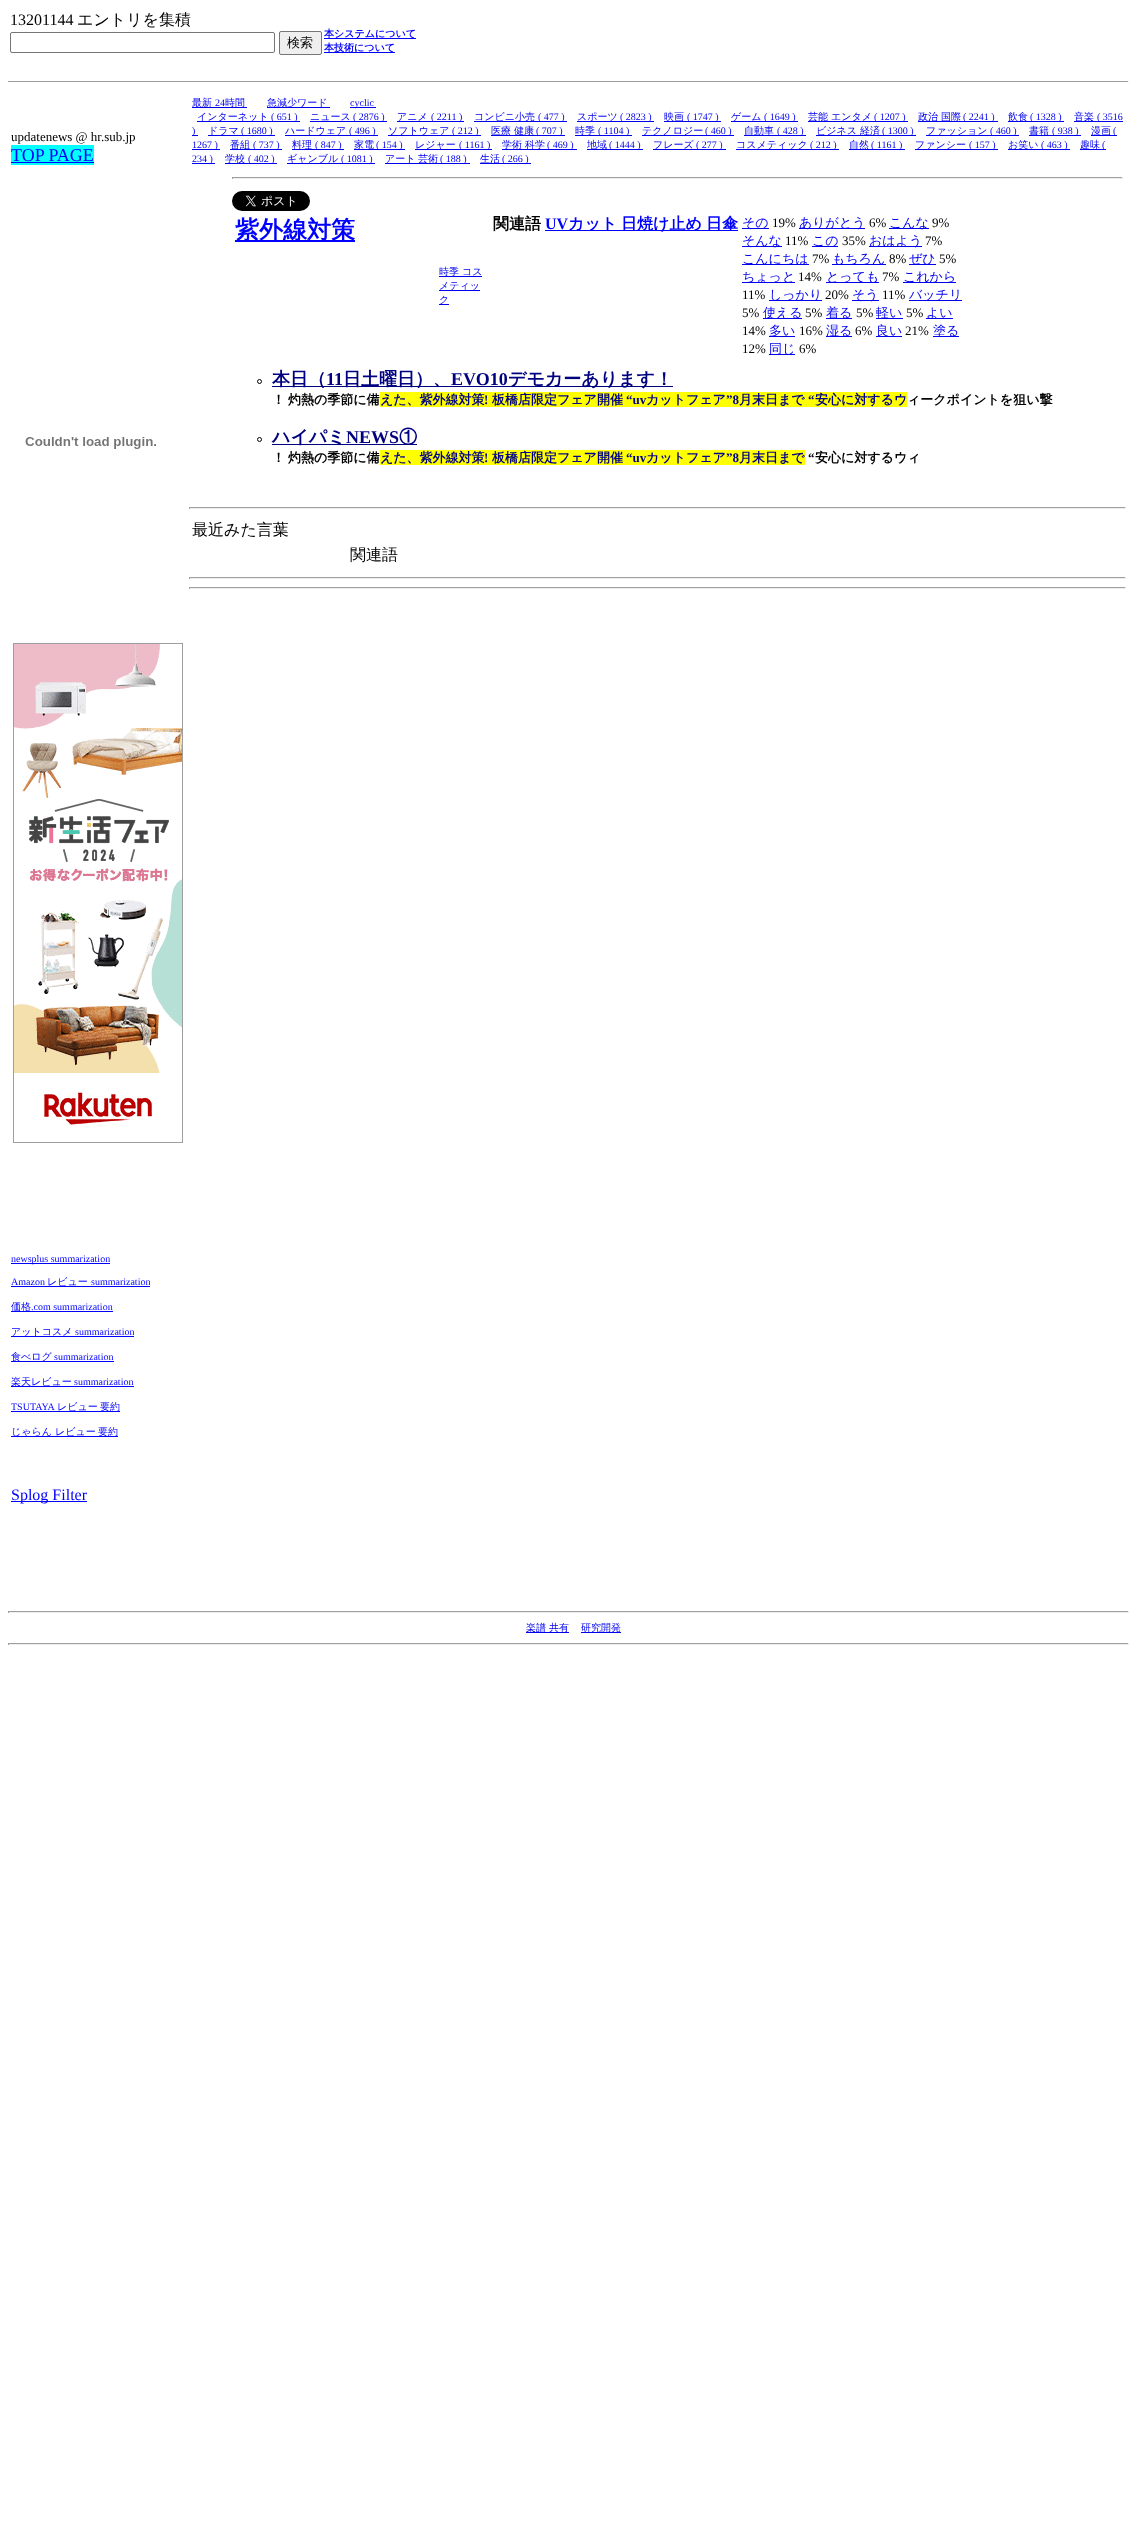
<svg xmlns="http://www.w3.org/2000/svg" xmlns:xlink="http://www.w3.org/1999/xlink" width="1137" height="2544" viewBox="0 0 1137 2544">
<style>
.cls-1{font:16px Liberation Serif;fill:#000000}
.cls-2{font:500 16px WenQuanYi Zen Hei;fill:#000000}
.cls-3{font:500 13px WenQuanYi Zen Hei;fill:#000000}
.cls-4{font:bold 10px WenQuanYi Zen Hei;fill:#0000ff}
.cls-5{font:13px Liberation Serif;fill:#000000}
.cls-6{font:18px Liberation Serif;fill:#0000ff}
.cls-7{font:10px Liberation Serif;fill:#0000ff}
.cls-8{font:500 10px WenQuanYi Zen Hei;fill:#0000ff}
.cls-9{font:16px Liberation Serif;fill:#0000ff}
.cls-10{font:500 10px WenQuanYi Zen Hei;fill:#0000ee}
.cls-11{font:10px Liberation Serif;fill:#0000ee}
.cls-12{font:bold 24px WenQuanYi Zen Hei;fill:#0000ff}
.cls-13{font:bold 16px WenQuanYi Zen Hei;fill:#000000}
.cls-14{font:bold 16px Liberation Serif;fill:#0000ff}
.cls-15{font:bold 16px WenQuanYi Zen Hei;fill:#0000ff}
.cls-16{font:500 13px WenQuanYi Zen Hei;fill:#0000ee}
.cls-17{font:bold 18px WenQuanYi Zen Hei;fill:#000080}
.cls-18{font:bold 18px Liberation Serif;fill:#000080}
.cls-19{font:bold 13px WenQuanYi Zen Hei;fill:#000000}
.cls-20{font:bold 13px WenQuanYi Zen Hei;fill:#00008b}
.cls-21{font:bold 13px Liberation Serif;fill:#00008b}
.cls-22{font:bold 13px Liberation Serif;fill:#000000}
</style>
<rect width="100%" height="100%" fill="#ffffff"/>
<rect fill="none" stroke="#767676" x="10.5" y="32.5" width="264" height="20" rx="1.5"/>
<rect fill="#efefef" stroke="#767676" x="279.5" y="31.5" width="42" height="23" rx="1.5"/>
<rect fill="#0000ff" x="324" y="38" width="92" height="1"/>
<rect fill="#0000ff" x="324" y="52" width="71" height="1"/>
<rect fill="#9f9f9f" x="8" y="81" width="1121" height="1"/>
<rect fill="#eeeeee" x="1128" y="81" width="1" height="1"/>
<rect fill="#00ffff" x="11" y="145" width="83" height="20"/>
<rect fill="#0000ff" x="11" y="162" width="83" height="1"/>
<image xlink:href="image0.png" x="25" y="437" width="131" height="12"/>
<image xlink:href="image1.png" x="13" y="643" width="170" height="500"/>
<rect fill="#0000ff" x="11" y="1263" width="99" height="1"/>
<rect fill="#0000ff" x="11" y="1286" width="139" height="1"/>
<rect fill="#0000ff" x="11" y="1311" width="102" height="1"/>
<rect fill="#0000ff" x="11" y="1336" width="123" height="1"/>
<rect fill="#0000ff" x="11" y="1361" width="103" height="1"/>
<rect fill="#0000ff" x="11" y="1386" width="123" height="1"/>
<rect fill="#0000ff" x="11" y="1411" width="109" height="1"/>
<rect fill="#0000ff" x="11" y="1436" width="107" height="1"/>
<rect fill="#0000ff" x="11" y="1501" width="76" height="1"/>
<rect fill="#0000ee" x="192" y="107" width="55" height="1"/>
<rect fill="#0000ee" x="267" y="107" width="63" height="1"/>
<rect fill="#0000ee" x="350" y="107" width="26" height="1"/>
<rect fill="#0000ee" x="197" y="121" width="103" height="1"/>
<rect fill="#0000ee" x="310" y="121" width="77" height="1"/>
<rect fill="#0000ee" x="397" y="121" width="67" height="1"/>
<rect fill="#0000ee" x="474" y="121" width="93" height="1"/>
<rect fill="#0000ee" x="577" y="121" width="77" height="1"/>
<rect fill="#0000ee" x="664" y="121" width="57" height="1"/>
<rect fill="#0000ee" x="731" y="121" width="67" height="1"/>
<rect fill="#0000ee" x="808" y="121" width="100" height="1"/>
<rect fill="#0000ee" x="918" y="121" width="80" height="1"/>
<rect fill="#0000ee" x="1008" y="121" width="56" height="1"/>
<rect fill="#0000ee" x="1074" y="121" width="49" height="1"/>
<rect fill="#0000ee" x="192" y="135" width="6" height="1"/>
<rect fill="#0000ee" x="208" y="135" width="67" height="1"/>
<rect fill="#0000ee" x="285" y="135" width="93" height="1"/>
<rect fill="#0000ee" x="388" y="135" width="93" height="1"/>
<rect fill="#0000ee" x="491" y="135" width="74" height="1"/>
<rect fill="#0000ee" x="575" y="135" width="57" height="1"/>
<rect fill="#0000ee" x="642" y="135" width="92" height="1"/>
<rect fill="#0000ee" x="744" y="135" width="62" height="1"/>
<rect fill="#0000ee" x="816" y="135" width="100" height="1"/>
<rect fill="#0000ee" x="926" y="135" width="93" height="1"/>
<rect fill="#0000ee" x="1029" y="135" width="52" height="1"/>
<rect fill="#0000ee" x="1091" y="135" width="26" height="1"/>
<rect fill="#0000ee" x="192" y="149" width="28" height="1"/>
<rect fill="#0000ee" x="230" y="149" width="52" height="1"/>
<rect fill="#0000ee" x="292" y="149" width="52" height="1"/>
<rect fill="#0000ee" x="354" y="149" width="51" height="1"/>
<rect fill="#0000ee" x="415" y="149" width="77" height="1"/>
<rect fill="#0000ee" x="502" y="149" width="75" height="1"/>
<rect fill="#0000ee" x="587" y="149" width="56" height="1"/>
<rect fill="#0000ee" x="653" y="149" width="73" height="1"/>
<rect fill="#0000ee" x="736" y="149" width="103" height="1"/>
<rect fill="#0000ee" x="849" y="149" width="56" height="1"/>
<rect fill="#0000ee" x="915" y="149" width="83" height="1"/>
<rect fill="#0000ee" x="1008" y="149" width="62" height="1"/>
<rect fill="#0000ee" x="1080" y="149" width="26" height="1"/>
<rect fill="#0000ee" x="192" y="163" width="23" height="1"/>
<rect fill="#0000ee" x="225" y="163" width="52" height="1"/>
<rect fill="#0000ee" x="287" y="163" width="88" height="1"/>
<rect fill="#0000ee" x="385" y="163" width="85" height="1"/>
<rect fill="#0000ee" x="480" y="163" width="51" height="1"/>
<rect fill="#9f9f9f" x="232" y="177" width="891" height="1"/>
<rect fill="#eeeeee" x="1122" y="177" width="1" height="2"/>
<rect fill="#eeeeee" x="232" y="178" width="891" height="1"/>
<rect fill="#9f9f9f" x="232" y="177" width="1" height="2"/>
<image xlink:href="image2.png" x="232" y="191" width="78" height="20"/>
<rect fill="#0000ff" x="235" y="240" width="120" height="2"/>
<rect fill="#0000ee" x="439" y="276" width="43" height="1"/>
<rect fill="#0000ee" x="439" y="290" width="41" height="1"/>
<rect fill="#0000ee" x="439" y="304" width="10" height="1"/>
<rect fill="#0000ff" x="545" y="230" width="193" height="1"/>
<rect fill="#0000ee" x="742" y="228" width="27" height="1"/>
<rect fill="#0000ee" x="799" y="228" width="66" height="1"/>
<rect fill="#0000ee" x="889" y="228" width="40" height="1"/>
<rect fill="#0000ee" x="742" y="246" width="40" height="1"/>
<rect fill="#0000ee" x="812" y="246" width="26" height="1"/>
<rect fill="#0000ee" x="869" y="246" width="53" height="1"/>
<rect fill="#0000ee" x="742" y="264" width="67" height="1"/>
<rect fill="#0000ee" x="832" y="264" width="54" height="1"/>
<rect fill="#0000ee" x="909" y="264" width="27" height="1"/>
<rect fill="#0000ee" x="742" y="282" width="53" height="1"/>
<rect fill="#0000ee" x="826" y="282" width="53" height="1"/>
<rect fill="#0000ee" x="903" y="282" width="53" height="1"/>
<rect fill="#0000ee" x="769" y="300" width="53" height="1"/>
<rect fill="#0000ee" x="852" y="300" width="27" height="1"/>
<rect fill="#0000ee" x="909" y="300" width="53" height="1"/>
<rect fill="#0000ee" x="763" y="318" width="39" height="1"/>
<rect fill="#0000ee" x="826" y="318" width="26" height="1"/>
<rect fill="#0000ee" x="876" y="318" width="27" height="1"/>
<rect fill="#0000ee" x="926" y="318" width="27" height="1"/>
<rect fill="#0000ee" x="769" y="336" width="26" height="1"/>
<rect fill="#0000ee" x="826" y="336" width="26" height="1"/>
<rect fill="#0000ee" x="876" y="336" width="26" height="1"/>
<rect fill="#0000ee" x="933" y="336" width="26" height="1"/>
<rect fill="#0000ee" x="769" y="354" width="26" height="1"/>
<circle fill="none" stroke="#000000" cx="259.5" cy="381.5" r="2"/>
<rect fill="#000080" x="272" y="386" width="401" height="1"/>
<rect fill="#ffff00" x="380" y="392" width="527" height="15"/>
<circle fill="none" stroke="#000000" cx="259.5" cy="439.5" r="2"/>
<rect fill="#000080" x="272" y="444" width="145" height="1"/>
<rect fill="#ffff00" x="380" y="450" width="425" height="15"/>
<rect fill="#9f9f9f" x="189" y="507" width="937" height="1"/>
<rect fill="#eeeeee" x="1125" y="507" width="1" height="2"/>
<rect fill="#eeeeee" x="189" y="508" width="937" height="1"/>
<rect fill="#9f9f9f" x="189" y="507" width="1" height="2"/>
<rect fill="#9f9f9f" x="189" y="577" width="937" height="1"/>
<rect fill="#eeeeee" x="1125" y="577" width="1" height="2"/>
<rect fill="#eeeeee" x="189" y="578" width="937" height="1"/>
<rect fill="#9f9f9f" x="189" y="577" width="1" height="2"/>
<rect fill="#9f9f9f" x="189" y="587" width="937" height="1"/>
<rect fill="#eeeeee" x="1125" y="587" width="1" height="2"/>
<rect fill="#eeeeee" x="189" y="588" width="937" height="1"/>
<rect fill="#9f9f9f" x="189" y="587" width="1" height="2"/>
<rect fill="#9f9f9f" x="8" y="1611" width="1121" height="1"/>
<rect fill="#eeeeee" x="1128" y="1611" width="1" height="2"/>
<rect fill="#eeeeee" x="8" y="1612" width="1121" height="1"/>
<rect fill="#9f9f9f" x="8" y="1611" width="1" height="2"/>
<rect fill="#0000ee" x="526" y="1632" width="43" height="1"/>
<rect fill="#0000ee" x="581" y="1632" width="40" height="1"/>
<rect fill="#9f9f9f" x="8" y="1643" width="1121" height="1"/>
<rect fill="#eeeeee" x="1128" y="1643" width="1" height="2"/>
<rect fill="#eeeeee" x="8" y="1644" width="1121" height="1"/>
<rect fill="#9f9f9f" x="8" y="1643" width="1" height="2"/>
<text class="cls-1" x="10" y="25">13201144</text>
<text class="cls-2" x="77" y="25">エントリを集積</text>
<text class="cls-3" x="287" y="47">検索</text>
<text class="cls-4"><tspan x="324" y="37">本システムについて</tspan><tspan x="324" y="51">本技術について</tspan></text>
<text class="cls-5" x="11" y="141">updatenews @ hr.sub.jp</text>
<text class="cls-6" x="11" y="161">TOP PAGE</text>
<text class="cls-7" x="11" y="1262">newsplus summarization</text>
<text class="cls-7" x="11" y="1285">Amazon</text>
<text class="cls-8" x="47" y="1285">レビュー</text>
<text class="cls-7" x="91" y="1285">summarization</text>
<text class="cls-8" x="11" y="1310">価格</text>
<text class="cls-7" x="31" y="1310">.com summarization</text>
<text class="cls-8" x="11" y="1335">アットコスメ</text>
<text class="cls-7" x="75" y="1335">summarization</text>
<text class="cls-8" x="11" y="1360">食べログ</text>
<text class="cls-7" x="54" y="1360">summarization</text>
<text class="cls-8" x="11" y="1385">楽天レビュー</text>
<text class="cls-7" x="74" y="1385">summarization</text>
<text class="cls-7" x="11" y="1410">TSUTAYA</text>
<text class="cls-8" x="57" y="1410">レビュー</text>
<text class="cls-8" x="100" y="1410">要約</text>
<text class="cls-8" x="11" y="1435">じゃらん レビュー</text>
<text class="cls-8" x="98" y="1435">要約</text>
<text class="cls-9" x="11" y="1500">Splog Filter</text>
<text class="cls-10" x="192" y="106">最新</text>
<text class="cls-11" x="215" y="106">24</text>
<text class="cls-10" x="225" y="106">時間</text>
<text class="cls-10" x="267" y="106">急減少ワード</text>
<text class="cls-11" x="350" y="106">cyclic</text>
<text class="cls-10" x="197" y="120">インターネット</text>
<text class="cls-11" x="271" y="120">( 651 )</text>
<text class="cls-10" x="310" y="120">ニュース</text>
<text class="cls-11" x="353" y="120">( 2876 )</text>
<text class="cls-10" x="397" y="120">アニメ</text>
<text class="cls-11" x="431" y="120">( 2211 )</text>
<text class="cls-10" x="474" y="120">コンビニ小売</text>
<text class="cls-11" x="538" y="120">( 477 )</text>
<text class="cls-10" x="577" y="120">スポーツ</text>
<text class="cls-11" x="620" y="120">( 2823 )</text>
<text class="cls-10" x="664" y="120">映画</text>
<text class="cls-11" x="687" y="120">( 1747 )</text>
<text class="cls-10" x="731" y="120">ゲーム</text>
<text class="cls-11" x="764" y="120">( 1649 )</text>
<text class="cls-10" x="808" y="120">芸能</text>
<text class="cls-10" x="831" y="120">エンタメ</text>
<text class="cls-11" x="874" y="120">( 1207 )</text>
<text class="cls-10" x="918" y="120">政治</text>
<text class="cls-10" x="941" y="120">国際</text>
<text class="cls-11" x="963" y="120">( 2241 )</text>
<text class="cls-10" x="1008" y="120">飲食</text>
<text class="cls-11" x="1030" y="120">( 1328 )</text>
<text class="cls-10" x="1074" y="120">音楽</text>
<text class="cls-11" x="1097" y="120">( 3516</text>
<text class="cls-11" x="192" y="134">)</text>
<text class="cls-10" x="208" y="134">ドラマ</text>
<text class="cls-11" x="241" y="134">( 1680 )</text>
<text class="cls-10" x="285" y="134">ハードウェア</text>
<text class="cls-11" x="349" y="134">( 496 )</text>
<text class="cls-10" x="388" y="134">ソフトウェア</text>
<text class="cls-11" x="452" y="134">( 212 )</text>
<text class="cls-10" x="491" y="134">医療</text>
<text class="cls-10" x="514" y="134">健康</text>
<text class="cls-11" x="536" y="134">( 707 )</text>
<text class="cls-10" x="575" y="134">時季</text>
<text class="cls-11" x="598" y="134">( 1104 )</text>
<text class="cls-10" x="642" y="134">テクノロジー</text>
<text class="cls-11" x="705" y="134">( 460 )</text>
<text class="cls-10" x="744" y="134">自動車</text>
<text class="cls-11" x="777" y="134">( 428 )</text>
<text class="cls-10" x="816" y="134">ビジネス</text>
<text class="cls-10" x="860" y="134">経済</text>
<text class="cls-11" x="882" y="134">( 1300 )</text>
<text class="cls-10" x="926" y="134">ファッション</text>
<text class="cls-11" x="990" y="134">( 460 )</text>
<text class="cls-10" x="1029" y="134">書籍</text>
<text class="cls-11" x="1052" y="134">( 938 )</text>
<text class="cls-10" x="1091" y="134">漫画</text>
<text class="cls-11" x="1113" y="134">(</text>
<text class="cls-11" x="192" y="148">1267 )</text>
<text class="cls-10" x="230" y="148">番組</text>
<text class="cls-11" x="253" y="148">( 737 )</text>
<text class="cls-10" x="292" y="148">料理</text>
<text class="cls-11" x="315" y="148">( 847 )</text>
<text class="cls-10" x="354" y="148">家電</text>
<text class="cls-11" x="376" y="148">( 154 )</text>
<text class="cls-10" x="415" y="148">レジャー</text>
<text class="cls-11" x="459" y="148">( 1161 )</text>
<text class="cls-10" x="502" y="148">学術</text>
<text class="cls-10" x="525" y="148">科学</text>
<text class="cls-11" x="547" y="148">( 469 )</text>
<text class="cls-10" x="587" y="148">地域</text>
<text class="cls-11" x="609" y="148">( 1444 )</text>
<text class="cls-10" x="653" y="148">フレーズ</text>
<text class="cls-11" x="696" y="148">( 277 )</text>
<text class="cls-10" x="736" y="148">コスメティック</text>
<text class="cls-11" x="810" y="148">( 212 )</text>
<text class="cls-10" x="849" y="148">自然</text>
<text class="cls-11" x="871" y="148">( 1161 )</text>
<text class="cls-10" x="915" y="148">ファンシー</text>
<text class="cls-11" x="969" y="148">( 157 )</text>
<text class="cls-10" x="1008" y="148">お笑い</text>
<text class="cls-11" x="1041" y="148">( 463 )</text>
<text class="cls-10" x="1080" y="148">趣味</text>
<text class="cls-11" x="1102" y="148">(</text>
<text class="cls-11" x="192" y="162">234 )</text>
<text class="cls-10" x="225" y="162">学校</text>
<text class="cls-11" x="248" y="162">( 402 )</text>
<text class="cls-10" x="287" y="162">ギャンブル</text>
<text class="cls-11" x="341" y="162">( 1081 )</text>
<text class="cls-10" x="385" y="162">アート</text>
<text class="cls-10" x="418" y="162">芸術</text>
<text class="cls-11" x="440" y="162">( 188 )</text>
<text class="cls-10" x="480" y="162">生活</text>
<text class="cls-11" x="502" y="162">( 266 )</text>
<text class="cls-12" x="235" y="238">紫外線対策</text>
<text class="cls-10" x="439" y="275">時季</text>
<text class="cls-10" x="462" y="275">コス</text>
<text class="cls-10"><tspan x="439" y="289">メティッ</tspan><tspan x="439" y="303">ク</tspan></text>
<text class="cls-13" x="493" y="229">関連語</text>
<text class="cls-14" x="545" y="229">UV</text>
<text class="cls-15" x="568" y="229">カット</text>
<text class="cls-15" x="621" y="229">日焼け止め</text>
<text class="cls-15" x="706" y="229">日傘</text>
<text class="cls-16" x="742" y="227">その</text>
<text class="cls-5" x="772" y="227">19%</text>
<text class="cls-16" x="799" y="227">ありがとう</text>
<text class="cls-5" x="869" y="227">6%</text>
<text class="cls-16" x="889" y="227">こんな</text>
<text class="cls-5" x="932" y="227">9%</text>
<text class="cls-16" x="742" y="245">そんな</text>
<text class="cls-5" x="785" y="245">11%</text>
<text class="cls-16" x="812" y="245">この</text>
<text class="cls-5" x="842" y="245">35%</text>
<text class="cls-16" x="869" y="245">おはよう</text>
<text class="cls-5" x="925" y="245">7%</text>
<text class="cls-16" x="742" y="263">こんにちは</text>
<text class="cls-5" x="812" y="263">7%</text>
<text class="cls-16" x="832" y="263">もちろん</text>
<text class="cls-5" x="889" y="263">8%</text>
<text class="cls-16" x="909" y="263">ぜひ</text>
<text class="cls-5" x="939" y="263">5%</text>
<text class="cls-16" x="742" y="281">ちょっと</text>
<text class="cls-5" x="798" y="281">14%</text>
<text class="cls-16" x="826" y="281">とっても</text>
<text class="cls-5" x="882" y="281">7%</text>
<text class="cls-16" x="903" y="281">これから</text>
<text class="cls-5" x="742" y="299">11%</text>
<text class="cls-16" x="769" y="299">しっかり</text>
<text class="cls-5" x="825" y="299">20%</text>
<text class="cls-16" x="852" y="299">そう</text>
<text class="cls-5" x="882" y="299">11%</text>
<text class="cls-16" x="909" y="299">バッチリ</text>
<text class="cls-5" x="742" y="317">5%</text>
<text class="cls-16" x="763" y="317">使える</text>
<text class="cls-5" x="805" y="317">5%</text>
<text class="cls-16" x="826" y="317">着る</text>
<text class="cls-5" x="856" y="317">5%</text>
<text class="cls-16" x="876" y="317">軽い</text>
<text class="cls-5" x="906" y="317">5%</text>
<text class="cls-16" x="926" y="317">よい</text>
<text class="cls-5" x="742" y="335">14%</text>
<text class="cls-16" x="769" y="335">多い</text>
<text class="cls-5" x="799" y="335">16%</text>
<text class="cls-16" x="826" y="335">湿る</text>
<text class="cls-5" x="855" y="335">6%</text>
<text class="cls-16" x="876" y="335">良い</text>
<text class="cls-5" x="905" y="335">21%</text>
<text class="cls-16" x="933" y="335">塗る</text>
<text class="cls-5" x="742" y="353">12%</text>
<text class="cls-16" x="769" y="353">同じ</text>
<text class="cls-5" x="799" y="353">6%</text>
<text class="cls-17" x="272" y="385">本日（</text>
<text class="cls-18" x="326" y="385">11</text>
<text class="cls-17" x="343" y="385">日土曜日）、</text>
<text class="cls-18" x="451" y="385">EVO10</text>
<text class="cls-17" x="508" y="385">デモカーあります！</text>
<text class="cls-19" x="272" y="404" word-spacing="-1">！ 灼熱の季節に備</text>
<text class="cls-20" x="380" y="404">えた、紫外線対策</text>
<text class="cls-21" x="484" y="404">!</text>
<text class="cls-20" x="492" y="404">板橋店限定フェア開催</text>
<text class="cls-21" x="626" y="404">“uv</text>
<text class="cls-20" x="646" y="404">カットフェア</text>
<text class="cls-21" x="726" y="404">”8</text>
<text class="cls-20" x="739" y="404">月末日まで</text>
<text class="cls-21" x="808" y="404">“</text>
<text class="cls-20" x="815" y="404">安心に対するウ</text>
<text class="cls-19" x="907" y="404">ィークポイントを狙い撃</text>
<text class="cls-17" x="272" y="443">ハイパミ</text>
<text class="cls-18" x="346" y="443">NEWS</text>
<text class="cls-17" x="399" y="443">①</text>
<text class="cls-19" x="272" y="462" word-spacing="-1">！ 灼熱の季節に備</text>
<text class="cls-20" x="380" y="462">えた、紫外線対策</text>
<text class="cls-21" x="484" y="462">!</text>
<text class="cls-20" x="492" y="462">板橋店限定フェア開催</text>
<text class="cls-21" x="626" y="462">“uv</text>
<text class="cls-20" x="646" y="462">カットフェア</text>
<text class="cls-21" x="726" y="462">”8</text>
<text class="cls-20" x="739" y="462">月末日まで</text>
<text class="cls-22" x="808" y="462">“</text>
<text class="cls-19" x="815" y="462">安心に対するウィ</text>
<text class="cls-2" x="192" y="535">最近みた言葉</text>
<text class="cls-2" x="350" y="560">関連語</text>
<text class="cls-10" x="526" y="1631">楽譜 共有</text>
<text class="cls-10" x="581" y="1631">研究開発</text>
</svg>
